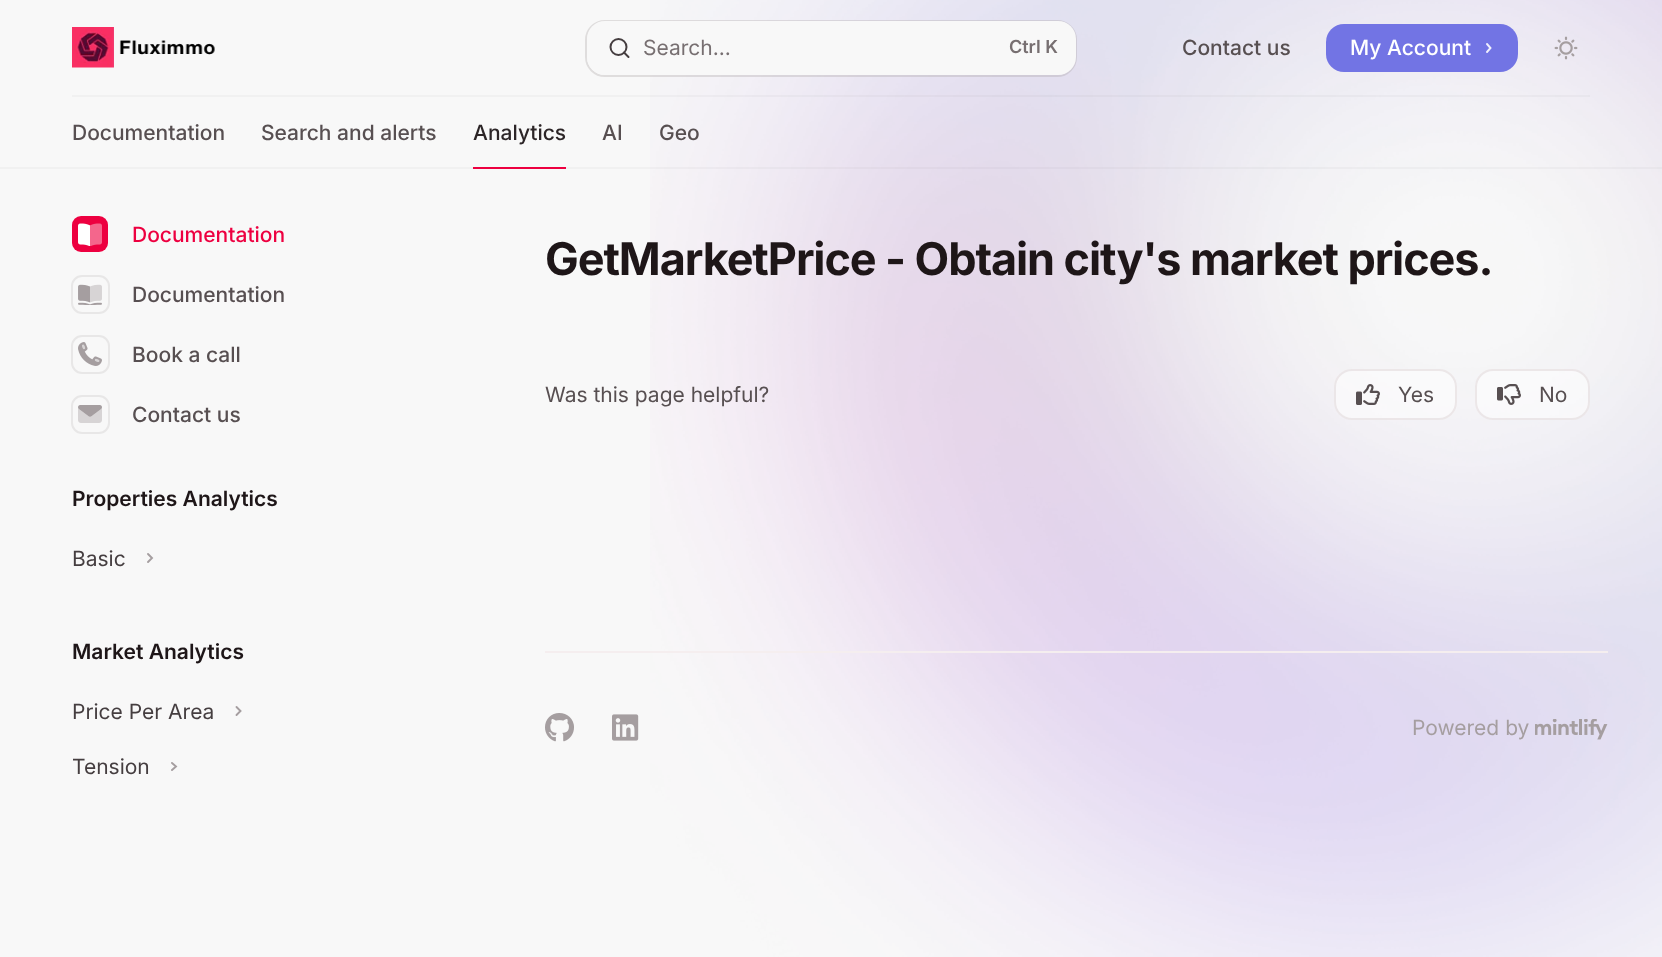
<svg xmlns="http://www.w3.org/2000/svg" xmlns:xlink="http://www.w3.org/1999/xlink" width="1662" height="957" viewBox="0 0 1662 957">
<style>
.cls-1{font:21px Inter;fill:#776f71}
.cls-2{font:600 18px Inter;fill:#776f71}
.cls-3{font:500 21px Inter;fill:#574f51}
.cls-4{font:500 21px Inter;fill:#ffffff}
.cls-5{font:500 21px Inter;fill:#2c2527}
.cls-6{font:500 21px Inter;fill:#ed0040}
.cls-7{font:600 21px Inter;fill:#1e1618}
.cls-8{font:21px Inter;fill:#453e40}
.cls-9{font:bold 45px Inter;letter-spacing:-1.1px;fill:#1e1618}
.cls-10{font:21px Inter;fill:#574f51}
.cls-11{font:21px Inter;fill:#a59ea0}
</style>
<rect width="100%" height="100%" fill="#f8f8f8"/>
<image xlink:href="image6.png" x="650" y="0" width="1012" height="957"/>
<rect fill="#776f71" fill-opacity="0.05" x="72" y="95" width="1518" height="2"/>
<image xlink:href="image0.png" x="72" y="27" width="143" height="41"/>
<rect fill="none" stroke="#a59ea0" stroke-opacity="0.3" stroke-width="2" x="586" y="21" width="490" height="55" rx="19"/>
<rect fill="#f8f8f8" x="587" y="21" width="489" height="54" rx="18"/>
<circle fill="none" stroke="#453e40" stroke-width="2" cx="618.5" cy="47" r="8"/>
<path fill="none" stroke="#453e40" stroke-width="2" stroke-linecap="round" stroke-linejoin="round" d="M628.5 57L624 52.5"/>
<rect fill="#7274e4" x="1326" y="24" width="192" height="48" rx="18"/>
<path fill="none" stroke="#f1f1fc" stroke-width="1.9" stroke-linecap="round" d="M1487 44L1490.5 48L1487 52"/>
<image xlink:href="image1.png" x="1554" y="36" width="24" height="24"/>
<rect fill="#776f71" fill-opacity="0.05" x="0" y="167" width="1662" height="2"/>
<rect fill="#ed0040" x="473" y="167" width="93" height="2"/>
<rect fill="#ed0040" x="72" y="216" width="36" height="36" rx="9"/>
<image xlink:href="image2.png" x="78" y="223" width="24" height="23"/>
<rect fill="none" stroke="#e8e7e7" stroke-width="2" x="72" y="276" width="37" height="37" rx="10"/>
<image xlink:href="image3.png" x="78" y="284" width="24" height="21"/>
<rect fill="none" stroke="#e8e7e7" stroke-width="2" x="72" y="336" width="37" height="37" rx="10"/>
<image xlink:href="image4.png" x="78" y="342" width="24" height="24"/>
<rect fill="none" stroke="#e8e7e7" stroke-width="2" x="72" y="396" width="37" height="37" rx="10"/>
<image xlink:href="image5.png" x="78" y="405" width="24" height="18"/>
<path fill="none" stroke="#a59ea0" stroke-width="1.9" stroke-linecap="round" d="M148 554L152 558L148 562"/>
<path fill="none" stroke="#a59ea0" stroke-width="1.9" stroke-linecap="round" d="M236.5 707L240.5 711L236.5 715"/>
<path fill="none" stroke="#a59ea0" stroke-width="1.9" stroke-linecap="round" d="M172 763L176 766.5L172 770"/>
<rect fill="#ffffff" fill-opacity="0.5" x="1334" y="369" width="123" height="51" rx="18"/>
<rect fill="none" stroke="#e5dee0" stroke-opacity="0.7" stroke-width="2" x="1335" y="370" width="121" height="49" rx="17"/>
<image xlink:href="image7.png" x="1356" y="384" width="24" height="21"/>
<rect fill="#ffffff" fill-opacity="0.5" x="1475" y="369" width="115" height="51" rx="18"/>
<rect fill="none" stroke="#e5dee0" stroke-opacity="0.7" stroke-width="2" x="1476" y="370" width="113" height="49" rx="17"/>
<image xlink:href="image8.png" x="1497" y="384" width="24" height="21"/>
<rect fill="#f5eeef" x="545" y="651" width="1063" height="2"/>
<image xlink:href="image9.png" x="545" y="713" width="29" height="29"/>
<image xlink:href="image10.png" x="612" y="714" width="27" height="27"/>
<image xlink:href="image11.png" x="1535" y="719" width="73" height="21"/>
<text class="cls-1" x="643" y="55">Search...</text>
<text class="cls-2" x="1009" y="53">Ctrl K</text>
<text class="cls-3" x="1182" y="55">Contact us</text>
<text class="cls-4" x="1350" y="55">My Account</text>
<text class="cls-3" x="72" y="140">Documentation</text>
<text class="cls-3" x="261" y="140">Search and alerts</text>
<text class="cls-5" x="473" y="140">Analytics</text>
<text class="cls-3" x="602" y="140">AI</text>
<text class="cls-3" x="659" y="140">Geo</text>
<text class="cls-6" x="132" y="242">Documentation</text>
<text class="cls-3" x="132" y="302">Documentation</text>
<text class="cls-3" x="132" y="362">Book a call</text>
<text class="cls-3" x="132" y="422">Contact us</text>
<text class="cls-7" x="72" y="506">Properties Analytics</text>
<text class="cls-8" x="72" y="566">Basic</text>
<text class="cls-7" x="72" y="659">Market Analytics</text>
<text class="cls-8" x="72" y="719">Price Per Area</text>
<text class="cls-8" x="72" y="774">Tension</text>
<text class="cls-9" x="545" y="275">GetMarketPrice - Obtain city's market prices.</text>
<text class="cls-10" x="545" y="402">Was this page helpful?</text>
<text class="cls-10" x="1398" y="402">Yes</text>
<text class="cls-10" x="1539" y="402">No</text>
<text class="cls-11" x="1412" y="735">Powered by</text>
</svg>
